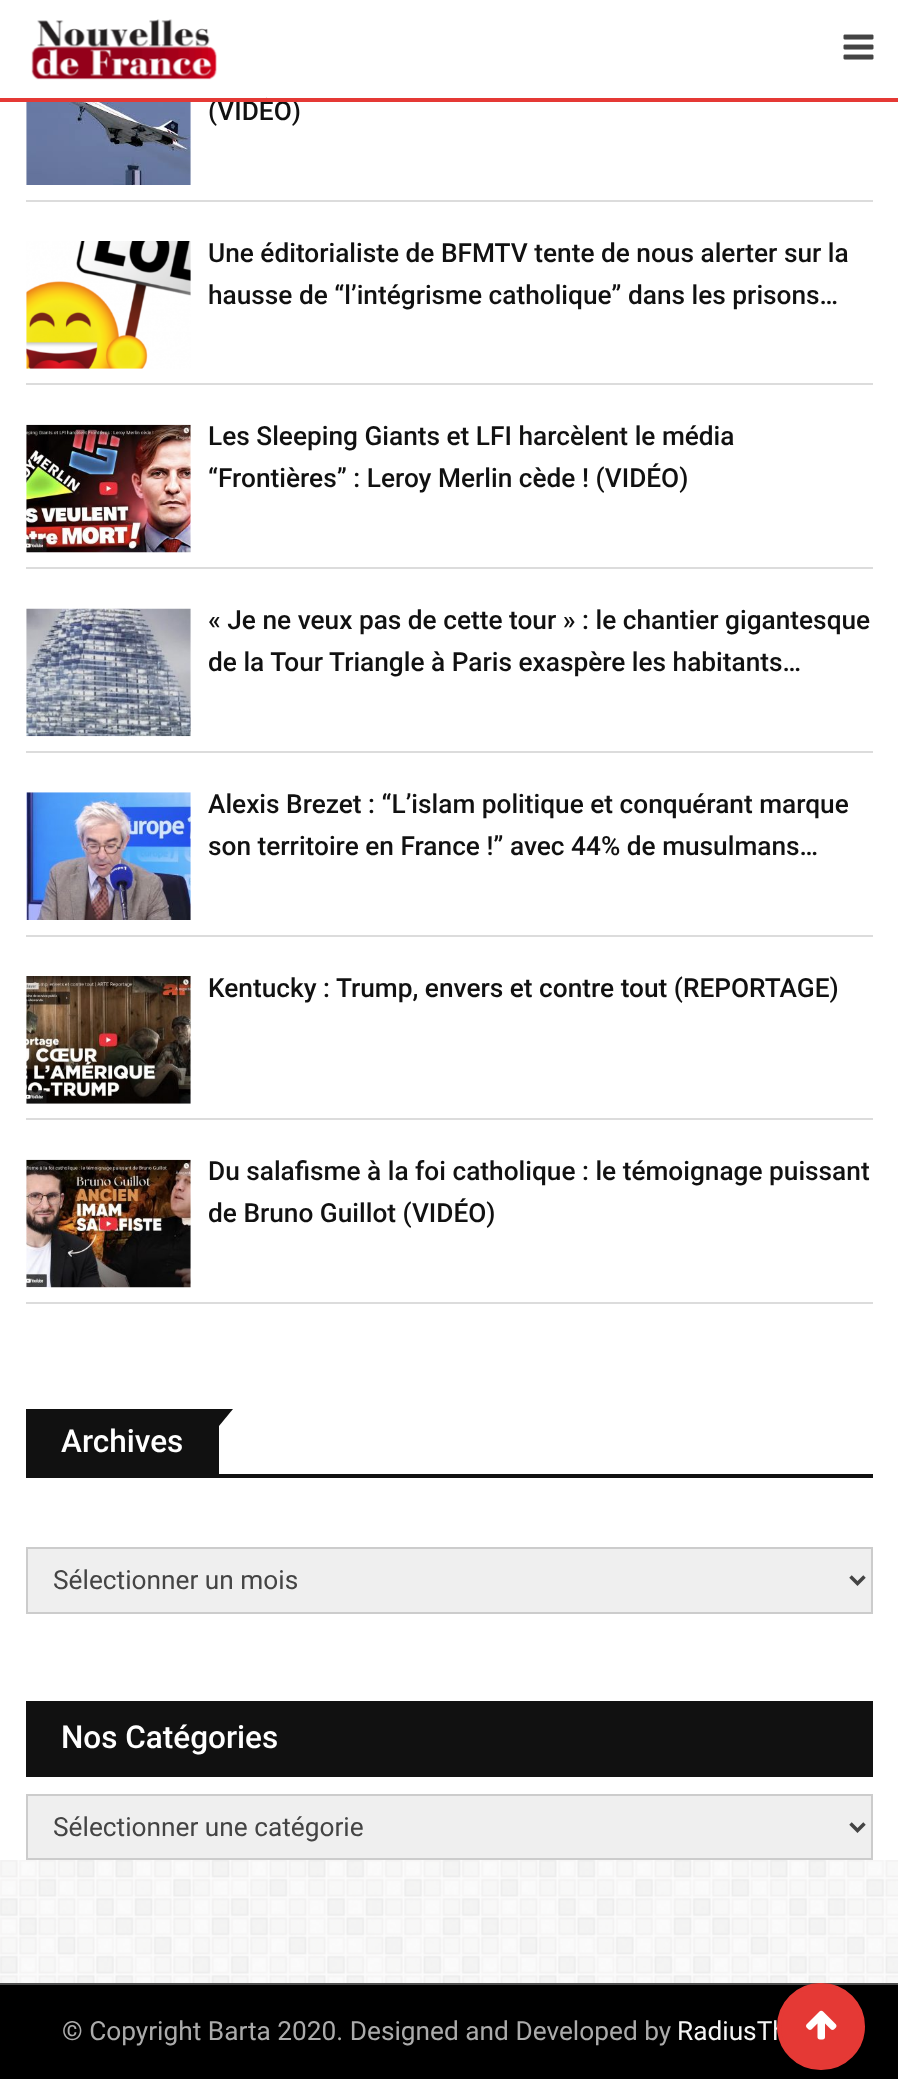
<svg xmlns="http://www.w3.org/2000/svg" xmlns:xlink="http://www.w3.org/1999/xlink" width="898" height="2079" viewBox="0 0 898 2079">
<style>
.cls-1{font:500 26.25px Roboto;fill:#111111}
.cls-2{font:500 31.5px Roboto;fill:#ffffff}
.cls-3{font:26.25px Roboto;fill:#444444}
.cls-4{font:26.25px Roboto;fill:#ababab}
.cls-5{font:26.25px Roboto;fill:#f5f5f5}
</style>
<rect width="100%" height="100%" fill="#ffffff"/>
<image xlink:href="image0.png" x="0" y="1860" width="898" height="123"/>
<image xlink:href="image1.png" x="31" y="19" width="186" height="61"/>
<image xlink:href="image2.png" x="843" y="34" width="31" height="26"/>
<rect fill="#dcdcdc" x="26" y="200" width="847" height="2"/>
<image xlink:href="image3.png" x="26" y="102" width="165" height="83"/>
<rect fill="#dcdcdc" x="26" y="383" width="847" height="2"/>
<image xlink:href="image4.png" x="26" y="241" width="165" height="128"/>
<rect fill="#dcdcdc" x="26" y="567" width="847" height="2"/>
<image xlink:href="image5.png" x="26" y="424" width="165" height="129"/>
<rect fill="#dcdcdc" x="26" y="751" width="847" height="2"/>
<image xlink:href="image6.png" x="26" y="608" width="165" height="129"/>
<rect fill="#dcdcdc" x="26" y="935" width="847" height="2"/>
<image xlink:href="image7.png" x="26" y="792" width="165" height="128"/>
<rect fill="#dcdcdc" x="26" y="1118" width="847" height="2"/>
<image xlink:href="image8.png" x="26" y="976" width="165" height="128"/>
<rect fill="#dcdcdc" x="26" y="1302" width="847" height="2"/>
<image xlink:href="image9.png" x="26" y="1159" width="165" height="129"/>
<rect fill="#111111" x="26" y="1474" width="847" height="4"/>
<rect fill="#111111" x="26" y="1409" width="193" height="65"/>
<path fill="#111111" d="M219 1409H233L219 1426Z"/>
<rect fill="#efefef" stroke="#cccccc" stroke-width="2" x="27" y="1548" width="845" height="65"/>
<path fill="none" stroke="#444444" stroke-width="3.5" d="M850.5 1576.5L857.5 1583.5L864.5 1576.5"/>
<rect fill="#111111" x="26" y="1701" width="847" height="76"/>
<rect fill="#efefef" stroke="#cccccc" stroke-width="2" x="27" y="1795" width="845" height="64"/>
<path fill="none" stroke="#444444" stroke-width="3.5" d="M850.5 1823.5L857.5 1830.5L864.5 1823.5"/>
<rect fill="#000000" x="0" y="1985" width="898" height="94"/>
<rect fill="#4d4d4d" x="0" y="1983" width="898" height="2"/>
<text class="cls-1" x="208" y="120">(VIDÉO)</text>
<rect fill="#e53935" x="0" y="98" width="898" height="4"/>
<rect fill="#ffffff" x="267" y="96" width="5" height="2"/>
<text class="cls-1"><tspan x="208" y="262">Une éditorialiste de BFMTV tente de nous alerter sur la</tspan><tspan x="208" y="304">hausse de “l’intégrisme catholique” dans les prisons…</tspan></text>
<text class="cls-1"><tspan x="208" y="445">Les Sleeping Giants et LFI harcèlent le média</tspan><tspan x="208" y="487">“Frontières” : Leroy Merlin cède ! (VIDÉO)</tspan></text>
<text class="cls-1"><tspan x="208" y="629">« Je ne veux pas de cette tour » : le chantier gigantesque</tspan><tspan x="208" y="671">de la Tour Triangle à Paris exaspère les habitants…</tspan></text>
<text class="cls-1"><tspan x="208" y="813">Alexis Brezet : “L’islam politique et conquérant marque</tspan><tspan x="208" y="855">son territoire en France !” avec 44% de musulmans…</tspan></text>
<text class="cls-1" x="208" y="997">Kentucky : Trump, envers et contre tout (REPORTAGE)</text>
<text class="cls-1"><tspan x="208" y="1180">Du salafisme à la foi catholique : le témoignage puissant</tspan><tspan x="208" y="1222">de Bruno Guillot (VIDÉO)</tspan></text>
<text class="cls-2" x="61" y="1452">Archives</text>
<text class="cls-3" x="53" y="1589">Sélectionner un mois</text>
<text class="cls-2" x="61" y="1748">Nos Catégories</text>
<text class="cls-3" x="53" y="1836">Sélectionner une catégorie</text>
<text class="cls-4" x="62" y="2040">© Copyright Barta 2020. Designed and Developed by</text>
<text class="cls-5" x="677" y="2040">RadiusTh</text>
<rect fill="#e53935" stroke="#e53935" stroke-width="4" x="779" y="1985" width="84" height="83" rx="41.5"/>
<image xlink:href="image10.png" x="806" y="2010" width="31" height="30"/>
</svg>
